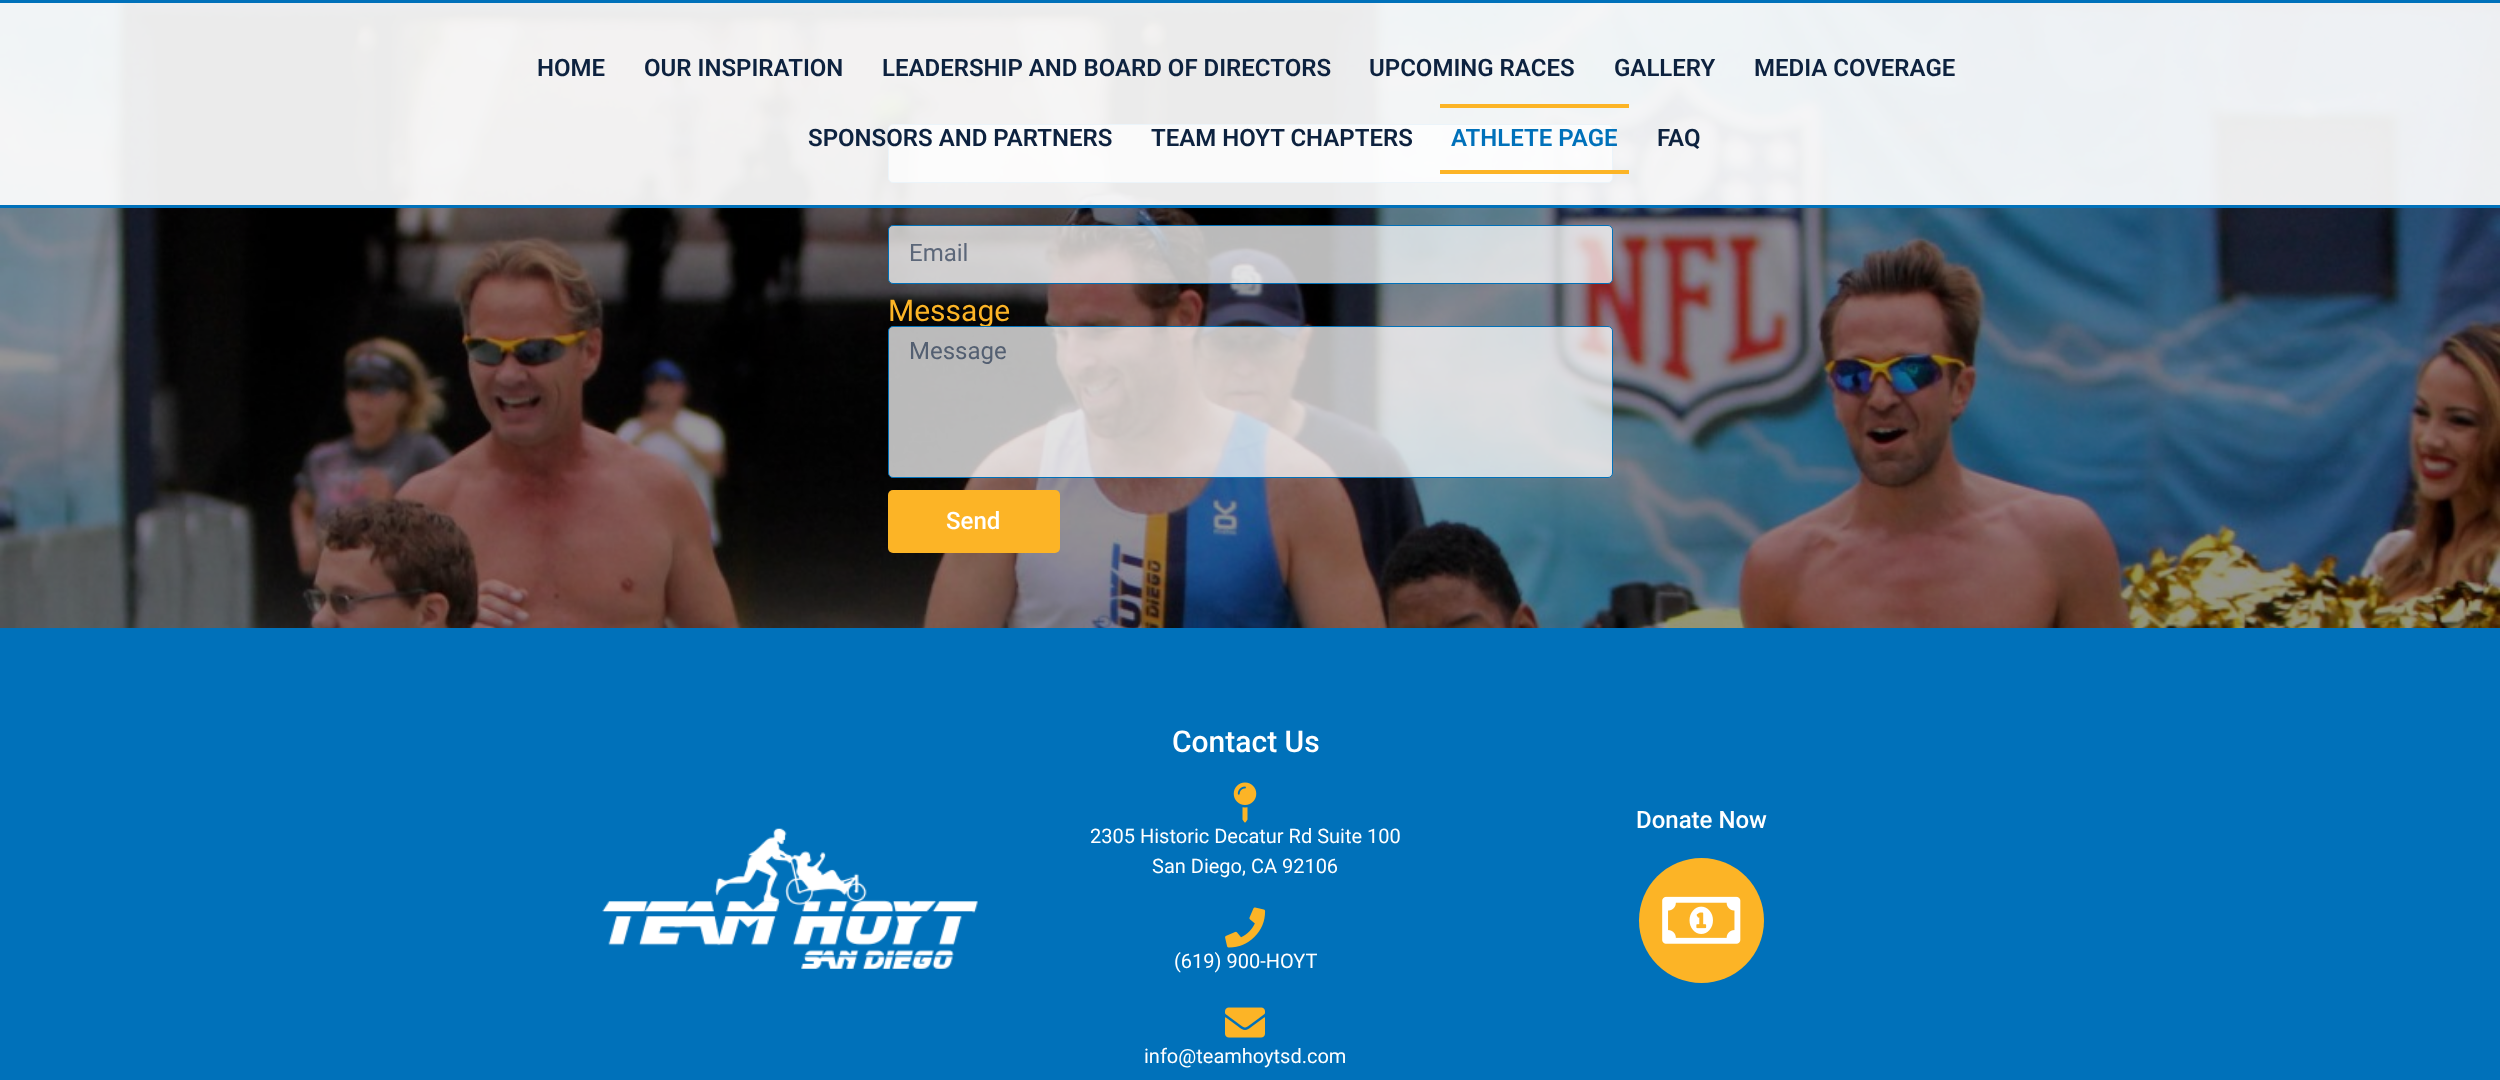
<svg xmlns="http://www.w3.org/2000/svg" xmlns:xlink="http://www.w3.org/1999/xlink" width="2500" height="1080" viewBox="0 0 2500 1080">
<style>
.cls-1{font:600 24px Roboto;fill:#0d223f}
.cls-2{font:600 24px Roboto;fill:#0071ba}
.cls-3{font:24px Roboto;fill:#5c6779}
.cls-4{font:30px Roboto;fill:#fcb426}
.cls-5{font:24px Roboto;fill:#535f71}
.cls-6{font:500 24px Roboto;fill:#ffffff}
.cls-7{font:500 30px Roboto;fill:#ffffff}
.cls-8{font:20px Roboto;fill:#ffffff}
</style>
<rect width="100%" height="100%" fill="#ffffff"/>
<image xlink:href="image0.png" x="0" y="3" width="2500" height="625"/>
<rect fill="#ffffff" fill-opacity="0.73" stroke="#0071ba" x="888.5" y="124.5" width="724" height="58" rx="4.5"/>
<rect fill="#ffffff" fill-opacity="0.92" x="0" y="3" width="2500" height="202"/>
<rect fill="#0071ba" x="0" y="0" width="2500" height="3"/>
<rect fill="#0071ba" x="0" y="205" width="2500" height="3"/>
<rect fill="#fcb426" x="1440" y="104" width="189" height="4"/>
<rect fill="#fcb426" x="1440" y="170" width="189" height="4"/>
<rect fill="#ffffff" fill-opacity="0.73" stroke="#0071ba" x="888.5" y="225.5" width="724" height="58" rx="4.5"/>
<rect fill="#fcb426" x="888" y="490" width="172" height="63" rx="5"/>
<rect fill="#0071ba" x="0" y="628" width="2500" height="452"/>
<image xlink:href="image1.png" x="1233" y="782" width="24" height="41"/>
<image xlink:href="image2.png" x="1225" y="907" width="41" height="41"/>
<image xlink:href="image3.png" x="1225" y="1007" width="40" height="31"/>
<circle fill="#fcb426" cx="1701.5" cy="920.5" r="62.5"/>
<image xlink:href="image4.png" x="1662" y="896" width="79" height="48"/>
<image xlink:href="image5.png" x="602" y="828" width="376" height="141"/>
<text class="cls-1" x="537" y="76">HOME</text>
<text class="cls-1" x="644" y="76">OUR INSPIRATION</text>
<text class="cls-1" x="882" y="76">LEADERSHIP AND BOARD OF DIRECTORS</text>
<text class="cls-1" x="1369" y="76">UPCOMING RACES</text>
<text class="cls-1" x="1614" y="76">GALLERY</text>
<text class="cls-1" x="1754" y="76">MEDIA COVERAGE</text>
<text class="cls-1" x="808" y="146">SPONSORS AND PARTNERS</text>
<text class="cls-1" x="1151" y="146">TEAM HOYT CHAPTERS</text>
<text class="cls-2" x="1451" y="146">ATHLETE PAGE</text>
<text class="cls-1" x="1657" y="146">FAQ</text>
<text class="cls-3" x="909" y="261">Email</text>
<text class="cls-4" x="888" y="321">Message</text>
<rect fill="#ffffff" fill-opacity="0.73" stroke="#0071ba" x="888.5" y="326.5" width="724" height="151" rx="4.5"/>
<text class="cls-5" x="909" y="359">Message</text>
<text class="cls-6" x="946" y="529">Send</text>
<text class="cls-7" x="1172" y="752">Contact Us</text>
<text class="cls-8" x="1090" y="843">2305 Historic Decatur Rd Suite 100</text>
<text class="cls-8" x="1152" y="873">San Diego, CA 92106</text>
<text class="cls-8" x="1174" y="968">(619) 900-HOYT</text>
<text class="cls-8" x="1144" y="1063">info@teamhoytsd.com</text>
<text class="cls-6" x="1636" y="828">Donate Now</text>
</svg>
